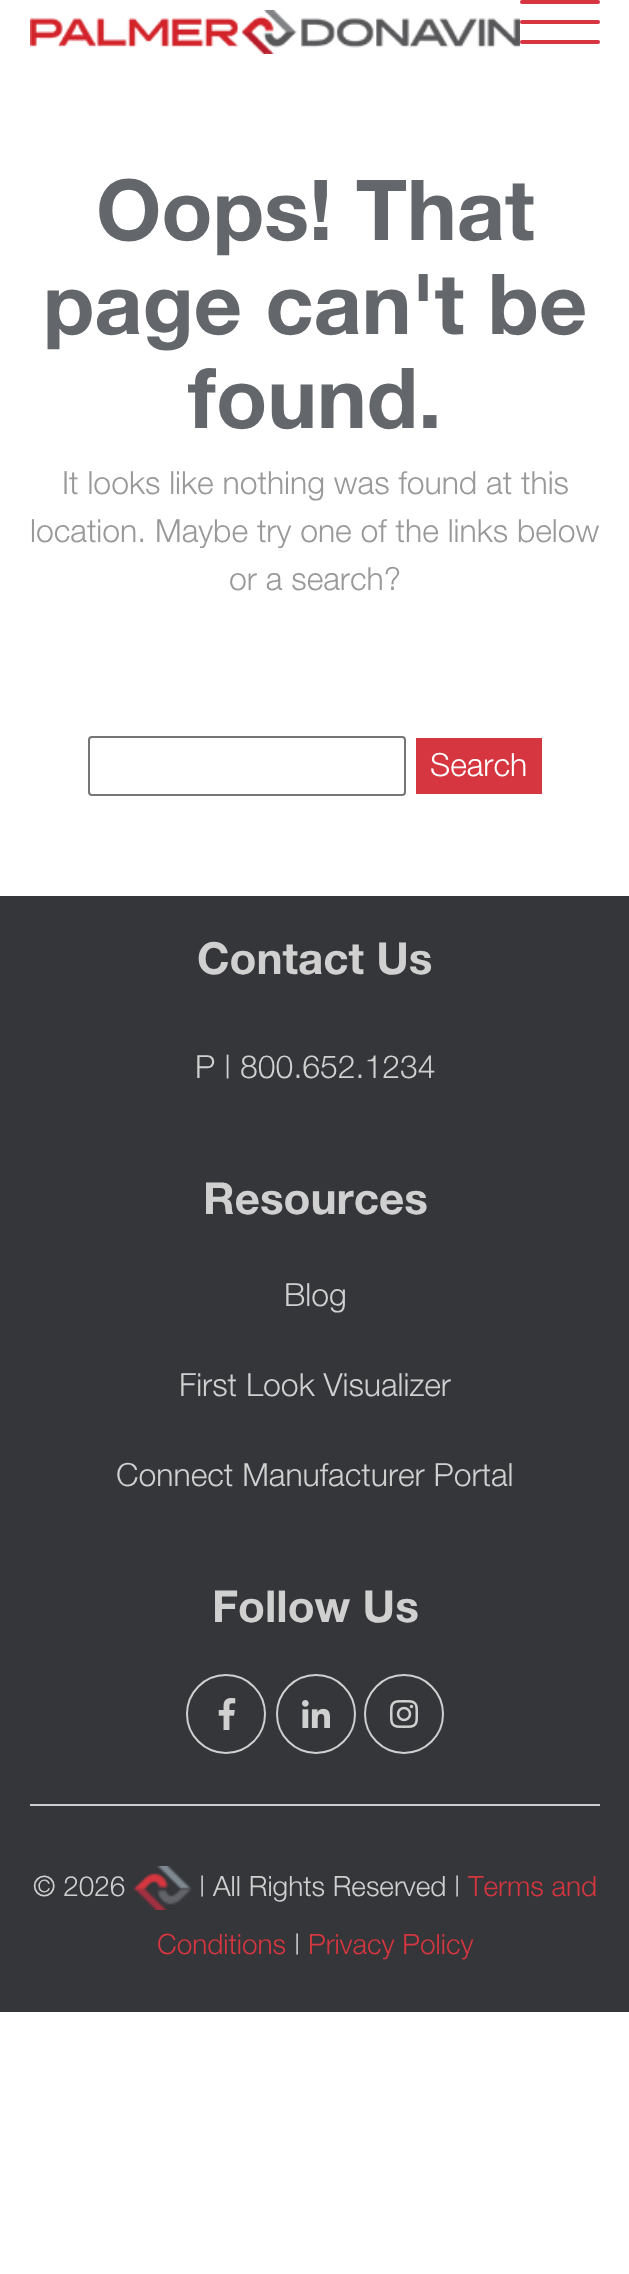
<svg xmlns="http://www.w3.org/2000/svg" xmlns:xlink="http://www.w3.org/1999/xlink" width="629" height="2274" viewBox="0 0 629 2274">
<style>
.cls-1{font:bold 84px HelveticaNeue;fill:#63666a}
.cls-2{font:300 32px HelveticaNeue;fill:#999999}
.cls-3{font:300 32px HelveticaNeue;fill:#ffffff}
.cls-4{font:bold 44px HelveticaNeue;fill:#d0d0d0}
.cls-5{font:300 32px HelveticaNeue;fill:#d0d0d0}
.cls-6{font:300 28px HelveticaNeue;fill:#d0d0d0}
.cls-7{font:300 28px HelveticaNeue;fill:#d5363f}
</style>
<rect width="100%" height="100%" fill="#ffffff"/>
<image xlink:href="image0.png" x="30" y="10" width="490" height="44"/>
<rect fill="#d5363f" x="520" y="20" width="80" height="4" rx="2"/>
<rect fill="#d5363f" x="520" y="0" width="80" height="4" rx="2"/>
<rect fill="#d5363f" x="520" y="40" width="80" height="4" rx="2"/>
<rect fill="none" stroke="#767676" stroke-width="2" x="89" y="737" width="316" height="58" rx="3"/>
<rect fill="#d5363f" x="416" y="738" width="126" height="56"/>
<rect fill="#34363a" x="0" y="896" width="629" height="1116"/>
<circle fill="none" stroke="#d0d0d0" stroke-width="2" cx="226" cy="1714" r="39"/>
<image xlink:href="image1.png" x="218" y="1698" width="18" height="32"/>
<circle fill="none" stroke="#d0d0d0" stroke-width="2" cx="316" cy="1714" r="39"/>
<image xlink:href="image2.png" x="302" y="1700" width="28" height="28"/>
<circle fill="none" stroke="#d0d0d0" stroke-width="2" cx="404" cy="1714" r="39"/>
<image xlink:href="image3.png" x="390" y="1700" width="28" height="28"/>
<rect fill="#d0d0d0" x="30" y="1804" width="570" height="2"/>
<image xlink:href="image4.png" x="134" y="1866" width="58" height="44"/>
<text class="cls-1" x="96" y="240">Oops! That</text>
<text class="cls-1" x="43" y="334">page can't be</text>
<text class="cls-1" x="188" y="428">found.</text>
<text class="cls-2" x="62" y="494">It looks like nothing was found at this</text>
<text class="cls-2" x="30" y="542">location. Maybe try one of the links below</text>
<text class="cls-2" x="229" y="590">or a search?</text>
<text class="cls-3" x="430" y="776">Search</text>
<text class="cls-4" x="197" y="974">Contact Us</text>
<text class="cls-5" x="195" y="1078">P | 800.652.1234</text>
<text class="cls-4" x="203" y="1214">Resources</text>
<text class="cls-5" x="284" y="1306">Blog</text>
<text class="cls-5" x="179" y="1396">First Look Visualizer</text>
<text class="cls-5" x="116" y="1486">Connect Manufacturer Portal</text>
<text class="cls-4" x="212" y="1622">Follow Us</text>
<text class="cls-6" x="33" y="1896">© 2026</text>
<text class="cls-6" x="199" y="1896">| All Rights Reserved |</text>
<text class="cls-7" x="468" y="1896">Terms and</text>
<text class="cls-7" x="157" y="1954">Conditions</text>
<text class="cls-6" x="294" y="1954">|</text>
<text class="cls-7" x="308" y="1954">Privacy Policy</text>
</svg>
